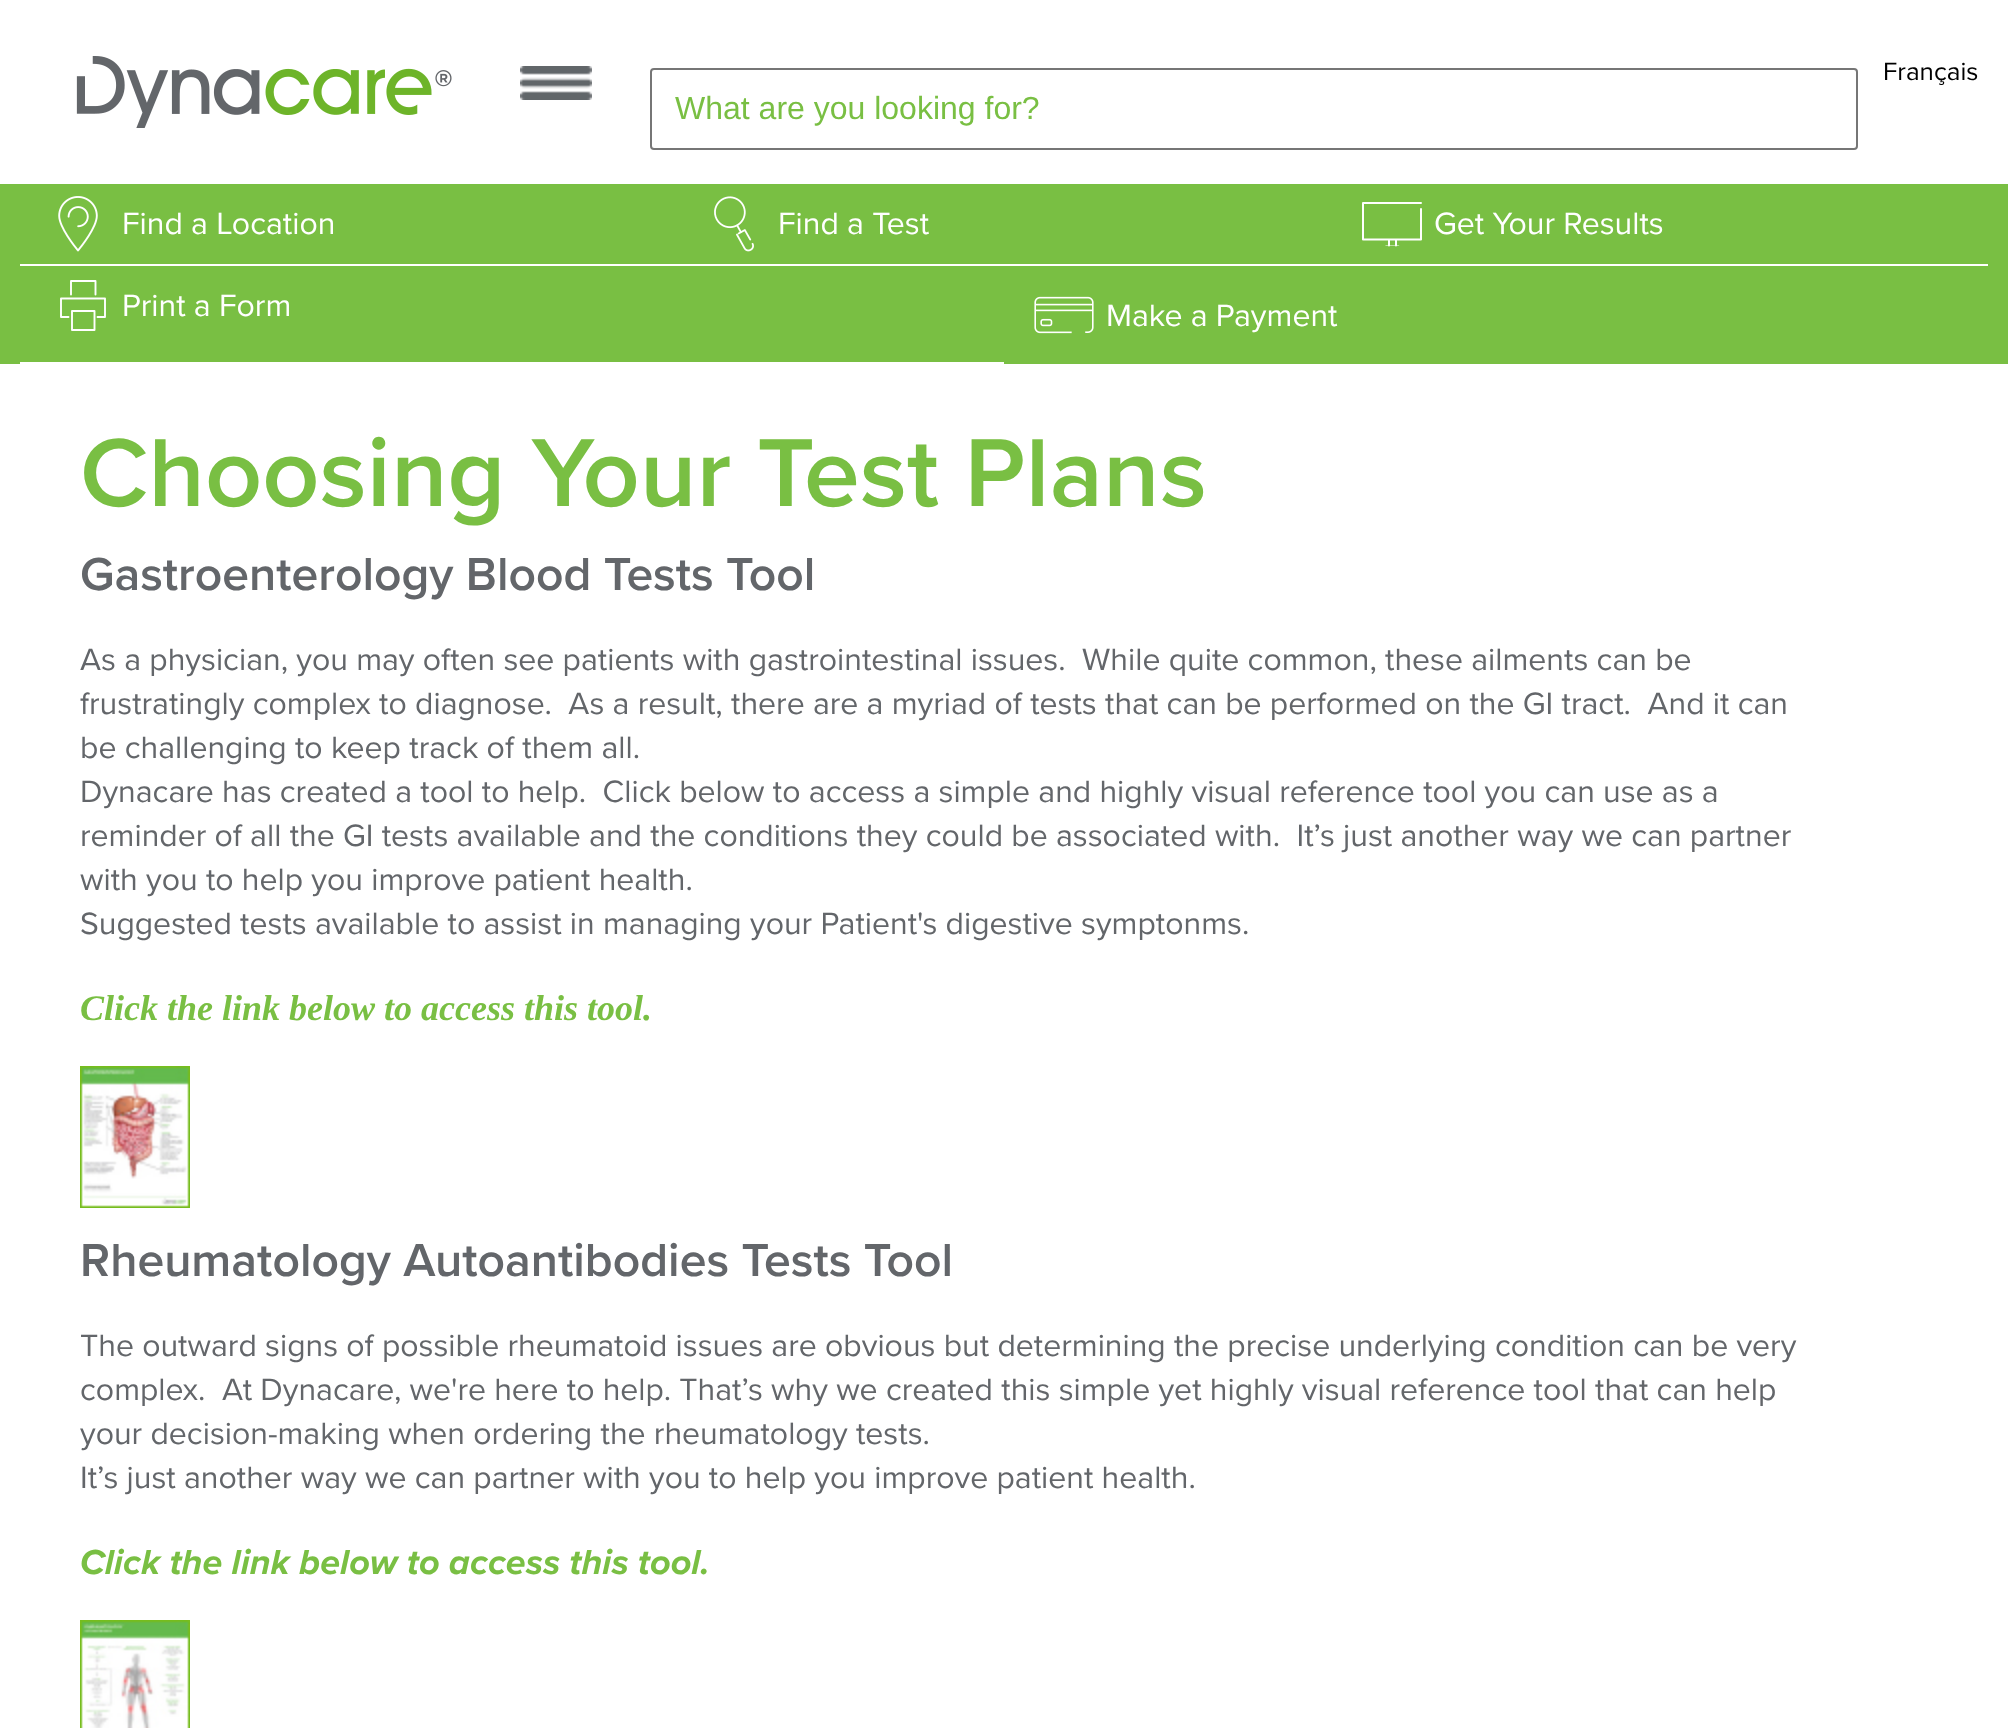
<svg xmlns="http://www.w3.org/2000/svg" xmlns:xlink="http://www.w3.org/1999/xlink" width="2008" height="1728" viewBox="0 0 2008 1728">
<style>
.cls-1{font:26px Proxima Nova;fill:#000000}
.cls-2{font:32px Liberation Sans;fill:#79bf43}
.cls-3{font:32px Proxima Nova;fill:#ffffff}
.cls-4{font:600 100px Proxima Nova;fill:#79bf43}
.cls-5{font:600 48px Proxima Nova;fill:#63666a}
.cls-6{font:32px Proxima Nova;fill:#63666a}
.cls-7{font:italic bold 36px Liberation Serif;fill:#79bf43}
.cls-8{font:italic bold 36px Proxima Nova;fill:#79bf43}
</style>
<defs>
<clipPath id="clip1"><rect x="1362" y="202" width="60" height="44"/></clipPath>
</defs>
<rect width="100%" height="100%" fill="#ffffff"/>
<image xlink:href="image0.png" x="76" y="56" width="376" height="72"/>
<image xlink:href="image1.png" x="520" y="66" width="72" height="34"/>
<rect fill="none" stroke="#767676" stroke-width="2" x="651" y="69" width="1206" height="80" rx="3"/>
<rect fill="#79bf43" x="0" y="184" width="2008" height="180"/>
<rect fill="#ffffff" x="20" y="264" width="1968" height="2"/>
<image xlink:href="image2.png" x="58" y="196" width="40" height="56"/>
<image xlink:href="image3.png" x="714" y="196" width="40" height="56"/>
<path fill="none" stroke="#ffffff" stroke-width="2" stroke-linecap="round" stroke-linejoin="round" d="M1396 240.5V245.5M1389 240V245.5"/>
<g clip-path="url(#clip1)">
<path fill="none" stroke="#ffffff" stroke-width="2" stroke-linecap="round" stroke-linejoin="round" d="M1386 246.5H1398.5"/>
</g>
<path fill="none" stroke="#ffffff" stroke-width="2" stroke-linecap="round" stroke-linejoin="round" d="M1421 203H1363V239.5H1421V209"/>
<rect fill="#ffffff" x="20" y="362" width="984" height="2"/>
<path fill="none" stroke="#fffffe" stroke-width="1.9" stroke-linecap="round" stroke-linejoin="round" d="M72 311H94.5V330H72Z"/>
<path fill="none" stroke="#ffffff" stroke-width="1.9" stroke-linecap="round" stroke-linejoin="round" d="M71 294.5V281H95.5V294.5M68.5 317H61V298.5H105V317H97.5"/>
<image xlink:href="image4.png" x="1034" y="296" width="60" height="38"/>
<image xlink:href="image5.png" x="80" y="1066" width="110" height="142"/>
<image xlink:href="image6.png" x="80" y="1620" width="110" height="108"/>
<text class="cls-1" x="1883" y="80">Français</text>
<text class="cls-2" x="675" y="119">What are you looking for?</text>
<text class="cls-3" x="122" y="234">Find a Location</text>
<text class="cls-3" x="778" y="234">Find a Test</text>
<text class="cls-3" x="1434" y="234">Get Your Results</text>
<text class="cls-3" x="122" y="316">Print a Form</text>
<text class="cls-3" x="1106" y="326">Make a Payment</text>
<text class="cls-4" x="80" y="506">Choosing Your Test Plans</text>
<text class="cls-5" x="80" y="590">Gastroenterology Blood Tests Tool</text>
<text class="cls-6" xml:space="preserve"><tspan x="80" y="670">As a physician, you may often see patients with gastrointestinal issues.  While quite common, these ailments can be</tspan><tspan x="80" y="714">frustratingly complex to diagnose.  As a result, there are a myriad of tests that can be performed on the GI tract.  And it can</tspan><tspan x="80" y="758">be challenging to keep track of them all.</tspan><tspan x="80" y="802">Dynacare has created a tool to help.  Click below to access a simple and highly visual reference tool you can use as a</tspan><tspan x="80" y="846">reminder of all the GI tests available and the conditions they could be associated with.  It’s just another way we can partner</tspan><tspan x="80" y="890">with you to help you improve patient health.</tspan><tspan x="80" y="934">Suggested tests available to assist in managing your Patient's digestive symptonms.</tspan></text>
<text class="cls-7" x="80" y="1020">Click the link below to access this tool.</text>
<text class="cls-5" x="80" y="1276">Rheumatology Autoantibodies Tests Tool</text>
<text class="cls-6" xml:space="preserve"><tspan x="80" y="1356">The outward signs of possible rheumatoid issues are obvious but determining the precise underlying condition can be very</tspan><tspan x="80" y="1400">complex.  At Dynacare, we're here to help. That’s why we created this simple yet highly visual reference tool that can help</tspan><tspan x="80" y="1444">your decision-making when ordering the rheumatology tests.</tspan><tspan x="80" y="1488">It’s just another way we can partner with you to help you improve patient health.</tspan></text>
<text class="cls-8" x="80" y="1574">Click the link below to access this tool.</text>
</svg>
